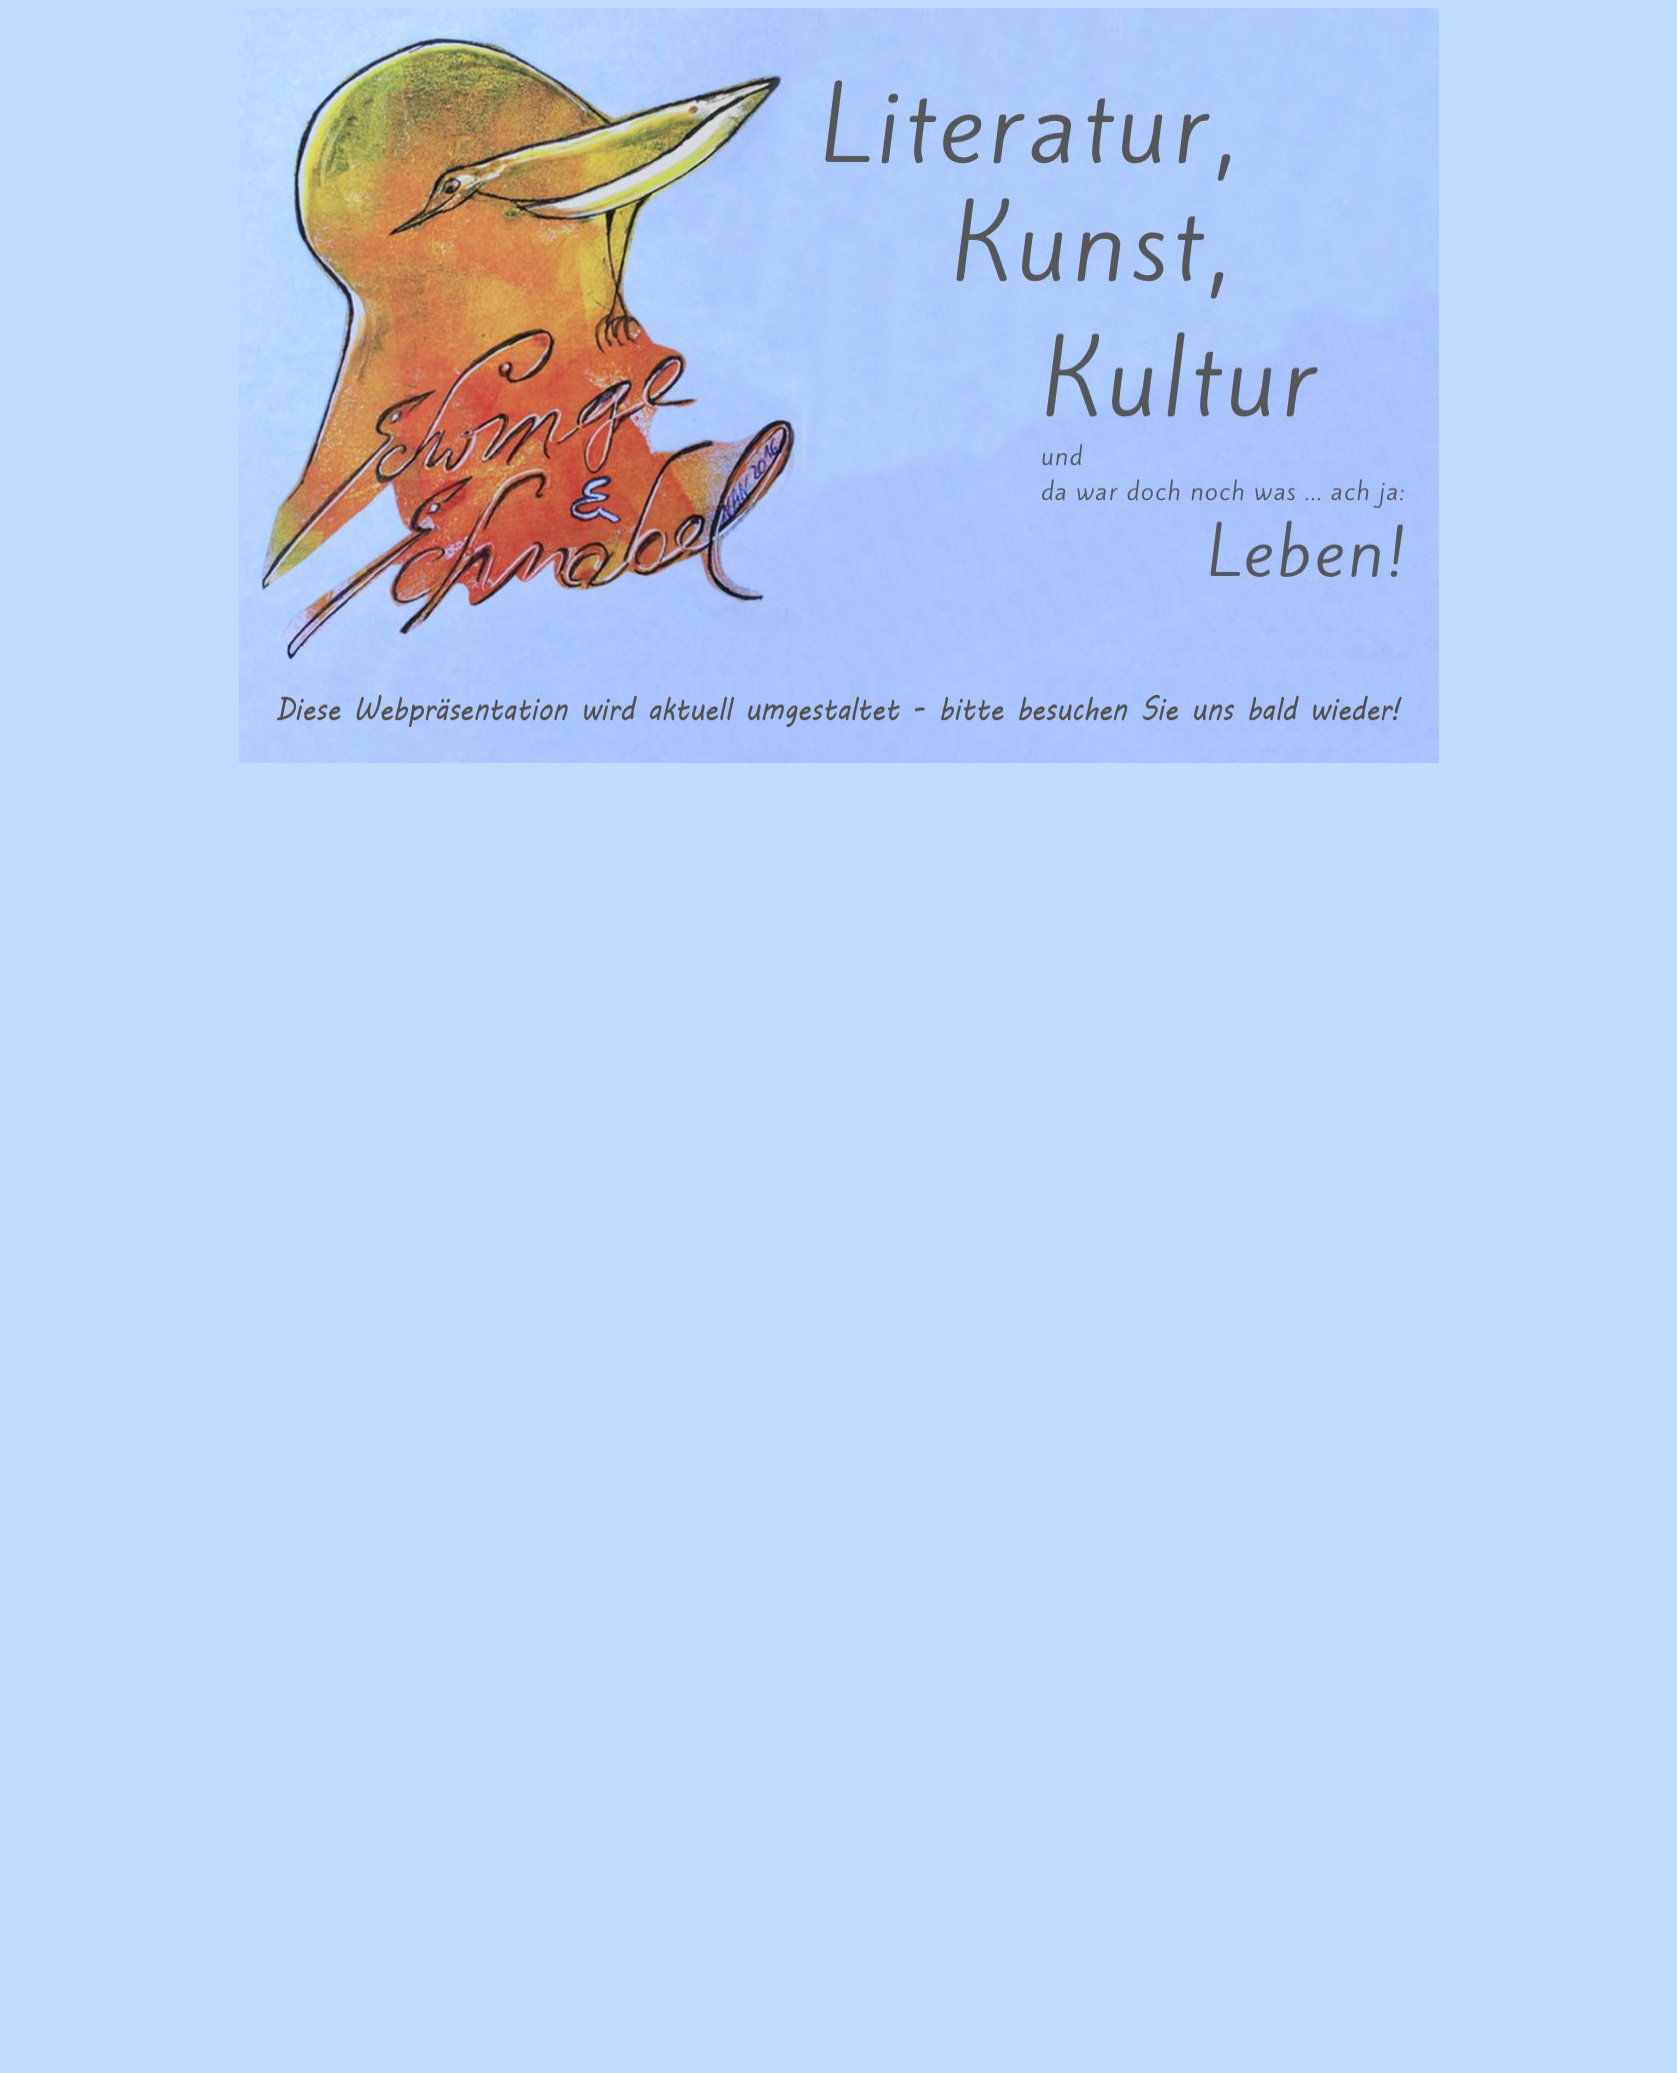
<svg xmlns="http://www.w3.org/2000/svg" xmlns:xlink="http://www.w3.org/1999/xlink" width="1677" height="2073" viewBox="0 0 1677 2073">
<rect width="100%" height="100%" fill="#bfdbff"/>
<image xlink:href="image0.png" x="239" y="8" width="1200" height="755"/>
</svg>
